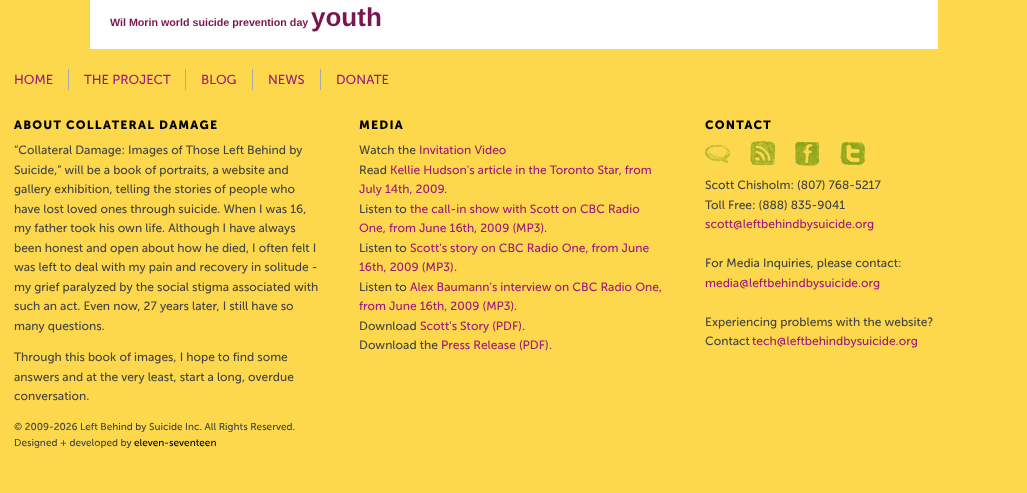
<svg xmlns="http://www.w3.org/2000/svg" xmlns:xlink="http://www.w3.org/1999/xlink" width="1027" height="493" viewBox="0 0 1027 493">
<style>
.cls-1{font:bold 10.7px Liberation Sans;fill:#7b154f}
.cls-2{font:bold 26px Liberation Sans;fill:#7b154f}
.cls-3{font:13px 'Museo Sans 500';fill:#a0187b}
.cls-4{font:bold 12px 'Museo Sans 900';letter-spacing:1.2px;fill:#000000}
.cls-5{font:12px 'Museo Sans 500';fill:#444444}
.cls-6{font:12px 'Museo Sans 500';fill:#a0187b}
.cls-7{font:10px 'Museo Sans 500';fill:#444444}
.cls-8{font:10px 'Museo Sans 500';fill:#000000}
</style>
<rect width="100%" height="100%" fill="#fdd84d"/>
<rect fill="#ffffff" x="90" y="0" width="848" height="49"/>
<rect fill="#aaaaaa" x="68" y="69" width="1" height="21"/>
<rect fill="#aaaaaa" x="185" y="69" width="1" height="21"/>
<rect fill="#aaaaaa" x="252" y="69" width="1" height="21"/>
<rect fill="#aaaaaa" x="320" y="69" width="1" height="21"/>
<image xlink:href="image0.png" x="705" y="145" width="25" height="18"/>
<image xlink:href="image1.png" x="750" y="141" width="25" height="24"/>
<image xlink:href="image2.png" x="795" y="142" width="24" height="24"/>
<image xlink:href="image3.png" x="840" y="142" width="25" height="23"/>
<text class="cls-1" x="110" y="26">Wil Morin</text>
<text class="cls-1" x="161" y="26">world suicide prevention day</text>
<text class="cls-2" x="311" y="26">youth</text>
<text class="cls-3" x="14" y="84">HOME</text>
<text class="cls-3" x="84" y="84">THE PROJECT</text>
<text class="cls-3" x="201" y="84">BLOG</text>
<text class="cls-3" x="268" y="84">NEWS</text>
<text class="cls-3" x="336" y="84">DONATE</text>
<text class="cls-4" x="14" y="129">ABOUT COLLATERAL DAMAGE</text>
<text class="cls-5"><tspan x="14" y="154">“Collateral Damage: Images of Those Left Behind by</tspan><tspan x="14" y="174">Suicide,” will be a book of portraits, a website and</tspan><tspan x="14" y="193">gallery exhibition, telling the stories of people who</tspan><tspan x="14" y="213">have lost loved ones through suicide. When I was 16,</tspan><tspan x="14" y="232">my father took his own life. Although I have always</tspan><tspan x="14" y="252">been honest and open about how he died, I often felt I</tspan><tspan x="14" y="271">was left to deal with my pain and recovery in solitude -</tspan><tspan x="14" y="291">my grief paralyzed by the social stigma associated with</tspan><tspan x="14" y="310">such an act. Even now, 27 years later, I still have so</tspan><tspan x="14" y="330">many questions.</tspan></text>
<text class="cls-5"><tspan x="14" y="361">Through this book of images, I hope to find some</tspan><tspan x="14" y="381">answers and at the very least, start a long, overdue</tspan><tspan x="14" y="400">conversation.</tspan></text>
<text class="cls-4" x="359" y="129">MEDIA</text>
<text class="cls-5" x="359" y="154">Watch the</text>
<text class="cls-6" x="419" y="154">Invitation Video</text>
<text class="cls-5" x="359" y="174">Read</text>
<text class="cls-6" x="390" y="174">Kellie Hudson's article in the Toronto Star, from</text>
<text class="cls-6" x="359" y="193">July 14th, 2009</text>
<text class="cls-5" x="444" y="193">.</text>
<text class="cls-5" x="359" y="213">Listen to</text>
<text class="cls-6" x="410" y="213">the call-in show with Scott on CBC Radio</text>
<text class="cls-6" x="359" y="232">One, from June 16th, 2009 (MP3)</text>
<text class="cls-5" x="544" y="232">.</text>
<text class="cls-5" x="359" y="252">Listen to</text>
<text class="cls-6" x="410" y="252">Scott's story on CBC Radio One, from June</text>
<text class="cls-6" x="359" y="271">16th, 2009 (MP3)</text>
<text class="cls-5" x="454" y="271">.</text>
<text class="cls-5" x="359" y="291">Listen to</text>
<text class="cls-6" x="410" y="291">Alex Baumann's interview on CBC Radio One,</text>
<text class="cls-6" x="359" y="310">from June 16th, 2009 (MP3)</text>
<text class="cls-5" x="514" y="310">.</text>
<text class="cls-5" x="359" y="330">Download</text>
<text class="cls-6" x="420" y="330">Scott's Story (PDF)</text>
<text class="cls-5" x="522" y="330">.</text>
<text class="cls-5" x="359" y="349">Download the</text>
<text class="cls-6" x="441" y="349">Press Release (PDF)</text>
<text class="cls-5" x="549" y="349">.</text>
<text class="cls-4" x="705" y="129">CONTACT</text>
<text class="cls-5"><tspan x="705" y="189">Scott Chisholm: (807) 768-5217</tspan><tspan x="705" y="209">Toll Free: (888) 835-9041</tspan></text>
<text class="cls-6" x="705" y="228">scott@leftbehindbysuicide.org</text>
<text class="cls-5" x="705" y="267">For Media Inquiries, please contact:</text>
<text class="cls-6" x="705" y="287">media@leftbehindbysuicide.org</text>
<text class="cls-5"><tspan x="705" y="326">Experiencing problems with the website?</tspan><tspan x="705" y="345">Contact</tspan></text>
<text class="cls-6" x="752" y="345">tech@leftbehindbysuicide.org</text>
<text class="cls-7"><tspan x="14" y="430">© 2009-2026 Left Behind by Suicide Inc. All Rights Reserved.</tspan><tspan x="14" y="446">Designed + developed by</tspan></text>
<text class="cls-8" x="134" y="446">eleven-seventeen</text>
</svg>
